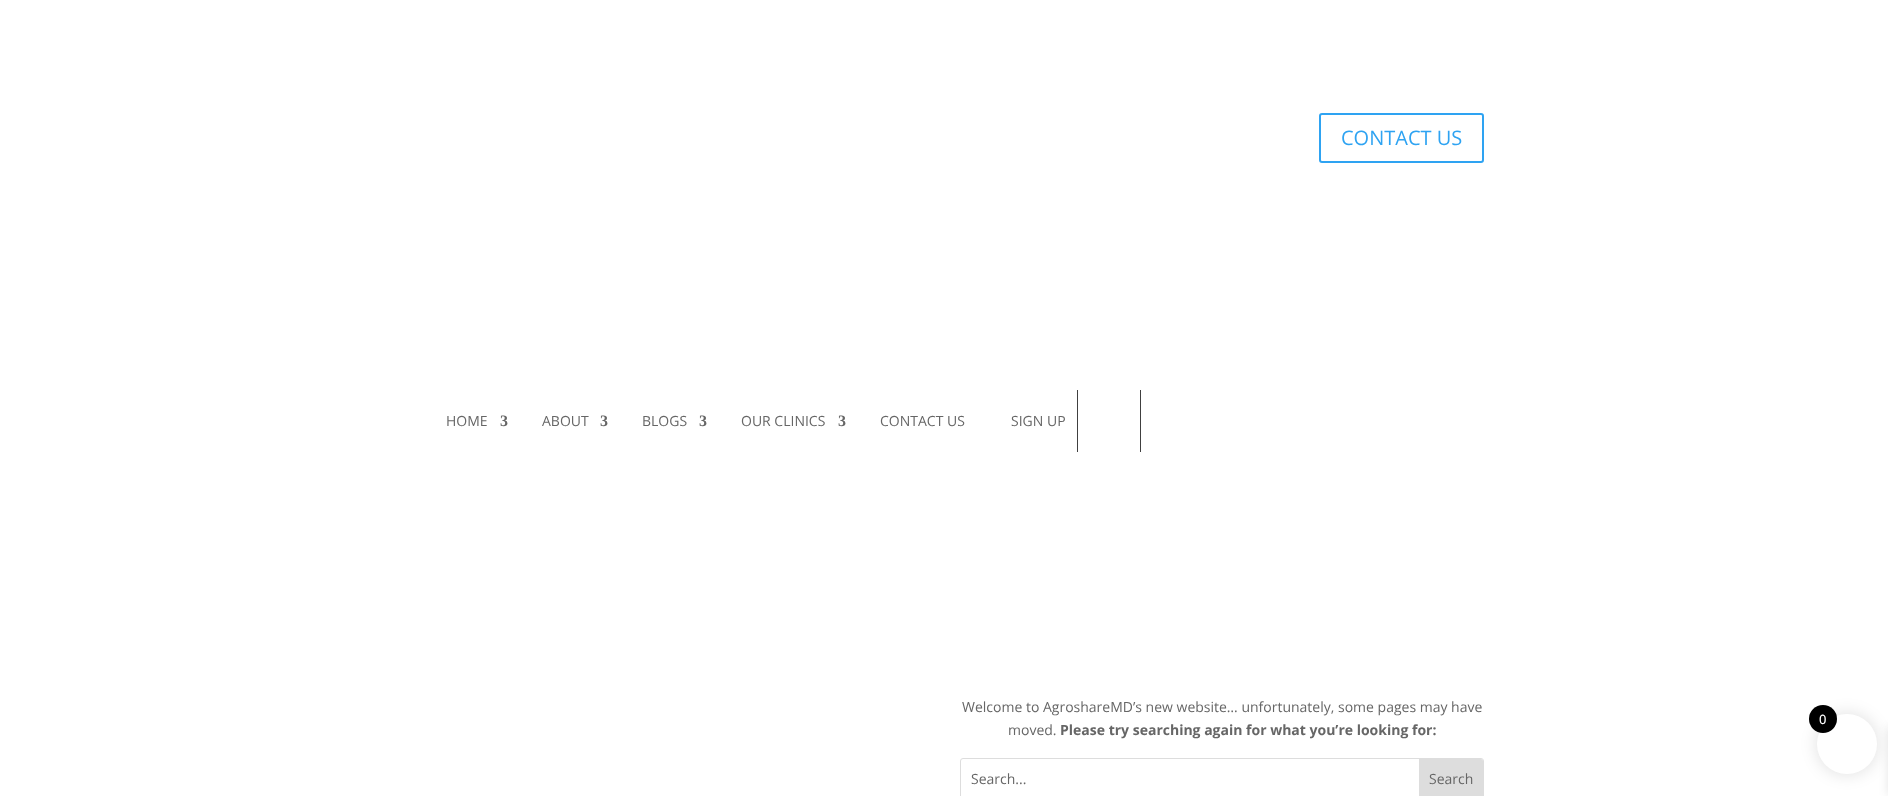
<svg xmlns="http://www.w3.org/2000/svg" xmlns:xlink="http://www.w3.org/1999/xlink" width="1888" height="796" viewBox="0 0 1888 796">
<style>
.cls-1{font:20px Open Sans;fill:#2ea3f2}
.cls-2{font:14px Open Sans;fill:#666666}
.cls-3{font:bold 16px Liberation Serif;fill:#666666}
.cls-4{font:bold 14px Open Sans;fill:#666666}
.cls-5{font:500 13px Open Sans;fill:#ffffff}
</style>
<rect width="100%" height="100%" fill="#ffffff"/>
<rect fill="none" stroke="#2ea3f2" stroke-width="2" x="1320" y="114" width="163" height="48" rx="2"/>
<rect fill="#404040" x="1140" y="390" width="1" height="62"/>
<rect fill="#404040" x="1077" y="390" width="1" height="62"/>
<rect fill="none" stroke="#dddddd" x="960.5" y="758.5" width="523" height="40" rx="2.5"/>
<path fill="#dddddd" d="M1419 759H1481C1482 759 1483 760 1483 761V796C1483 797 1482 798 1481 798H1419Z"/>
<rect fill="#000000" fill-opacity="0.1" filter="blur(7.5px)" x="1815" y="712" width="64" height="64" rx="32"/>
<rect fill="#000000" fill-opacity="0.1" filter="blur(5px)" x="1888" y="727" width="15" height="68"/>
<circle fill="#ffffff" cx="1847" cy="744" r="30"/>
<circle fill="#000000" cx="1823" cy="719" r="14"/>
<text class="cls-1" x="1341" y="145">CONTACT US</text>
<text class="cls-2" x="446" y="426">HOME</text>
<text class="cls-3" x="500" y="426">3</text>
<text class="cls-2" x="542" y="426">ABOUT</text>
<text class="cls-3" x="600" y="426">3</text>
<text class="cls-2" x="642" y="426">BLOGS</text>
<text class="cls-3" x="699" y="426">3</text>
<text class="cls-2" x="741" y="426">OUR CLINICS</text>
<text class="cls-3" x="838" y="426">3</text>
<text class="cls-2" x="880" y="426">CONTACT US</text>
<text class="cls-2" x="1011" y="426">SIGN UP</text>
<text class="cls-2" x="962" y="712">Welcome to AgroshareMD’s new website… unfortunately, some pages may have</text>
<text class="cls-2" x="1008" y="735">moved.</text>
<text class="cls-4" x="1060" y="735">Please try searching again for what you’re looking for:</text>
<text class="cls-2" x="971" y="784">Search...</text>
<text class="cls-2" x="1429" y="784">Search</text>
<text class="cls-5" x="1819" y="724">0</text>
</svg>
